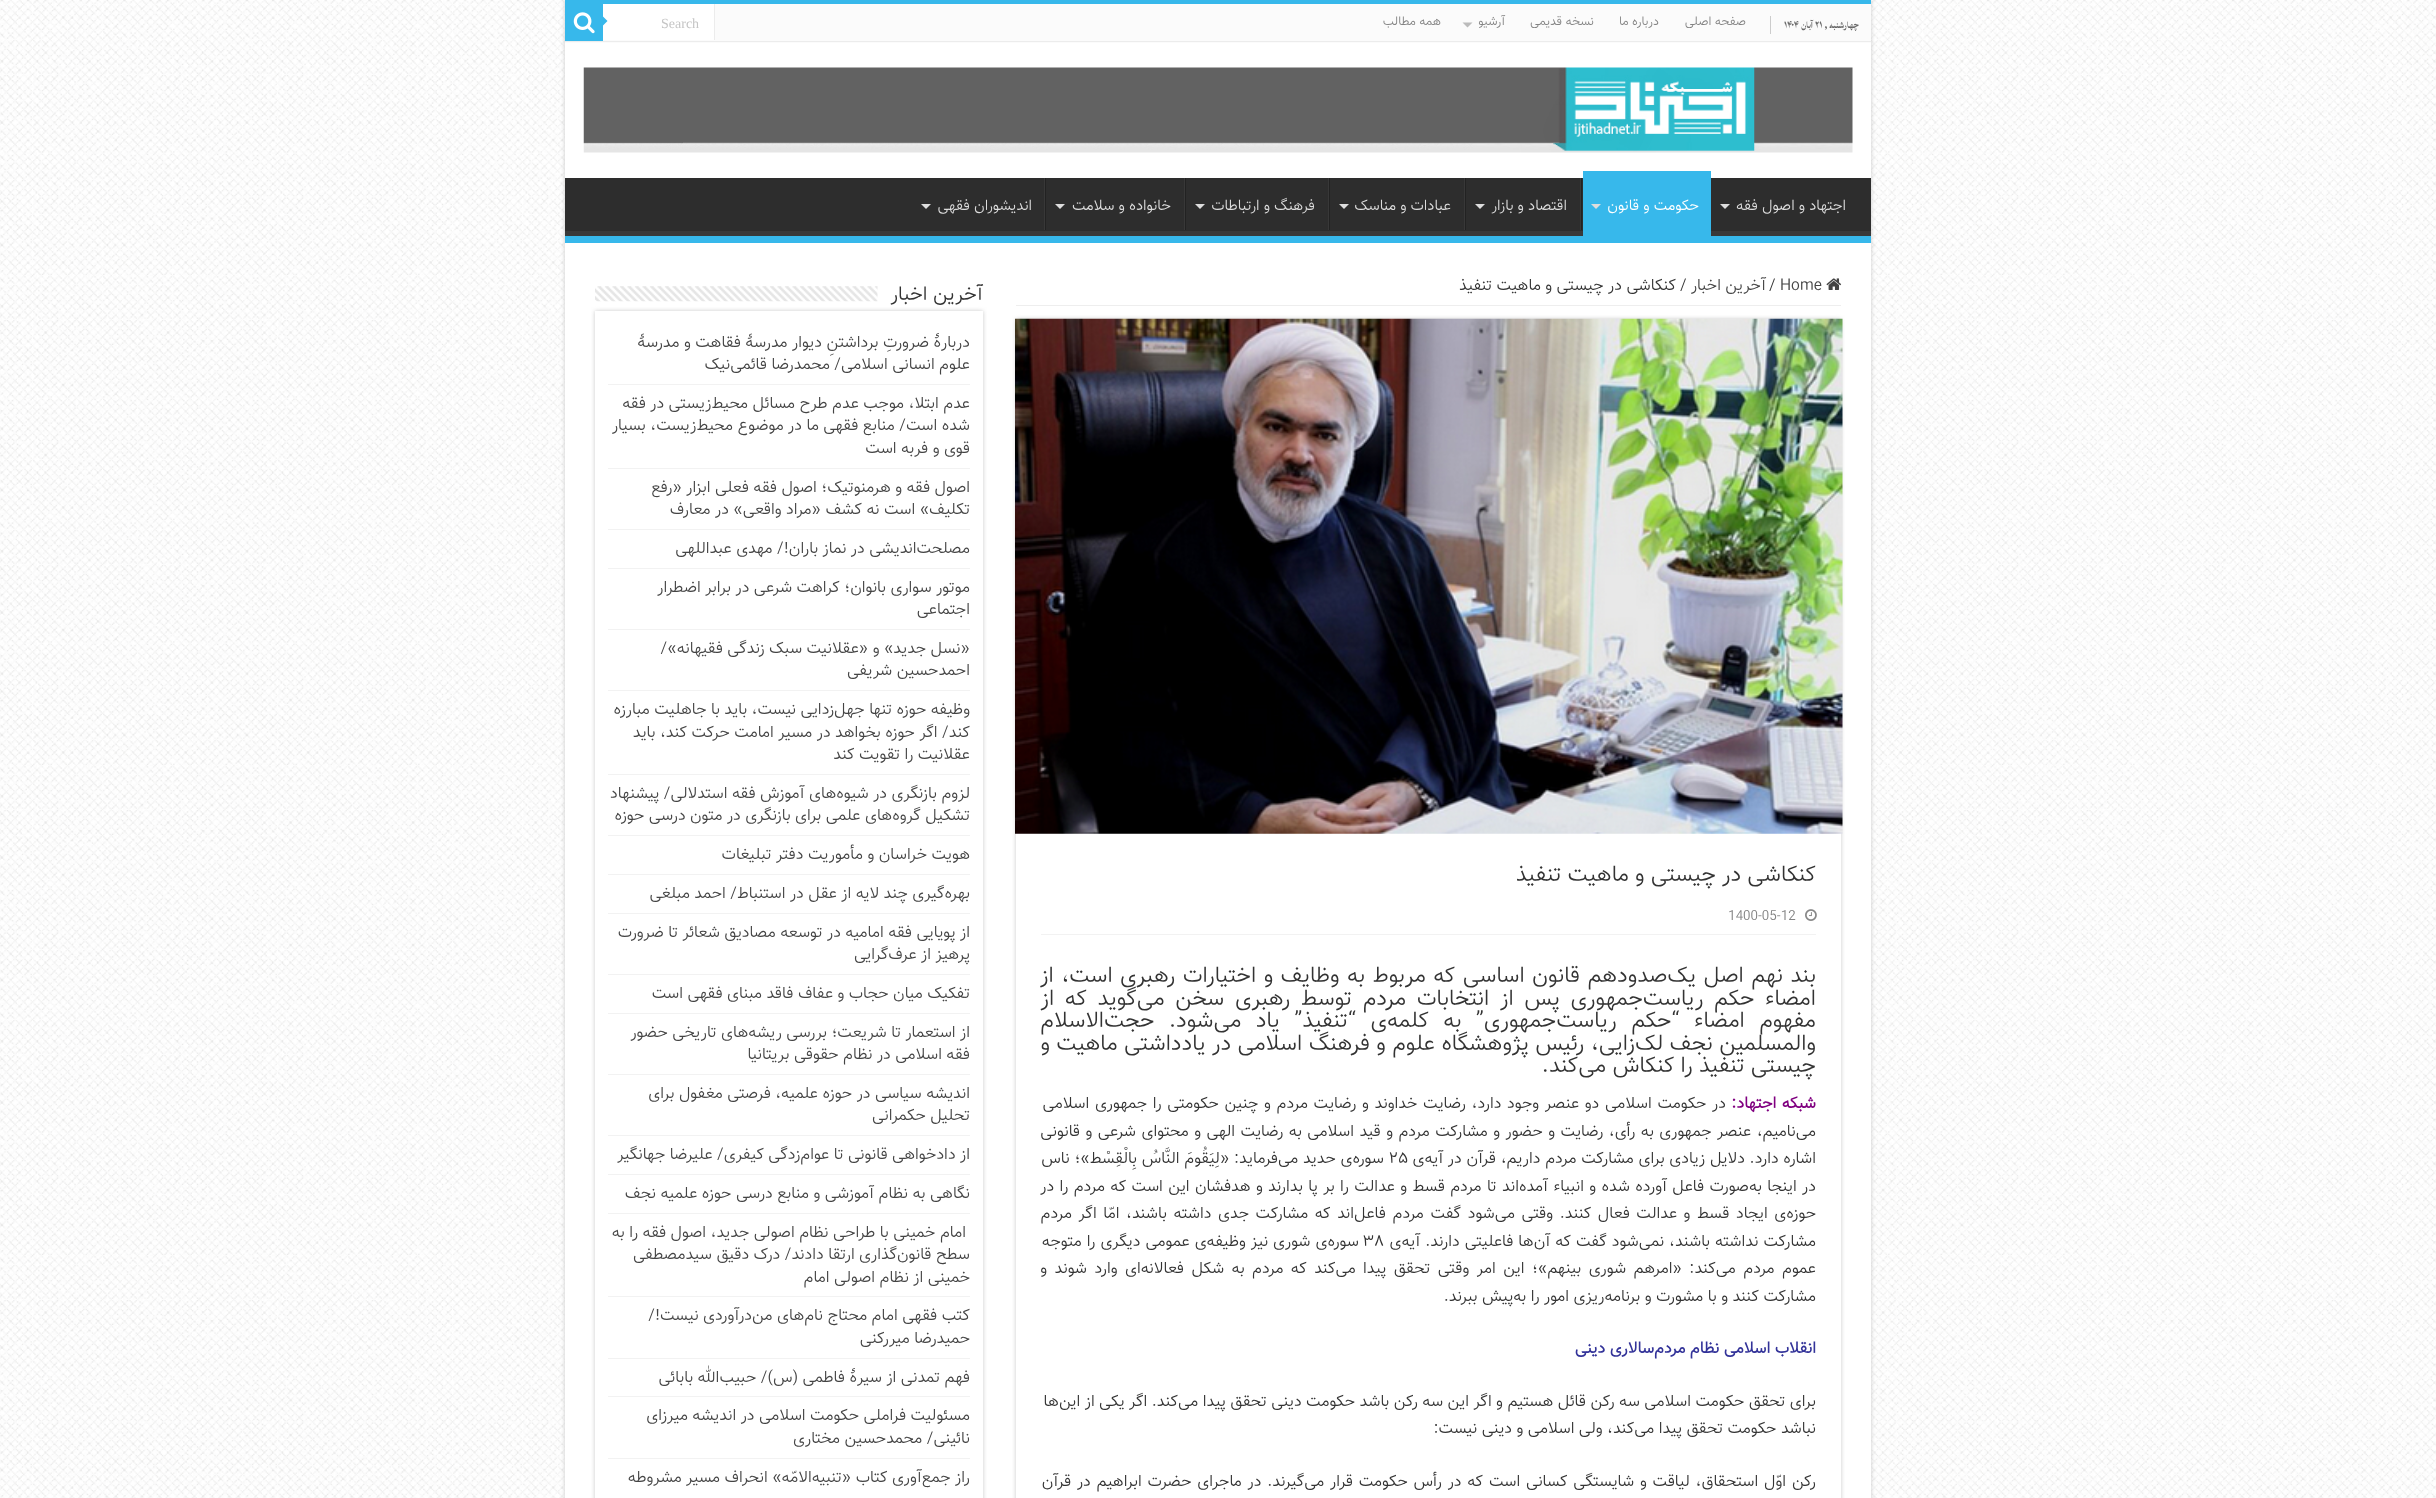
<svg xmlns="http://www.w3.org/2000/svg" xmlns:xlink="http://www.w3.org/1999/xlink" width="2436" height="1498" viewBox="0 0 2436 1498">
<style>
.cls-1{font:bold 12.5px Lateef;direction:rtl;fill:#666666}
.cls-2{font:bold 12.5px Lateef;fill:#666666}
.cls-3{font:300 12.5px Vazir;direction:rtl;fill:#838383}
.cls-4{font:14px Liberation Serif;fill:#c5c5c5}
.cls-5{font:300 15px Vazir;direction:rtl;fill:#dddddd}
.cls-6{font:300 15px Vazir;direction:rtl;fill:#ffffff}
.cls-7{font:300 16.25px Vazir;fill:#444444}
.cls-8{font:300 16.25px Vazir;fill:#333333}
.cls-9{font:300 16.25px Vazir;direction:rtl;fill:#444444}
.cls-10{font:300 16.25px Vazir;direction:rtl;fill:#333333}
.cls-11{font:300 22.5px Vazir;direction:rtl;fill:#333333}
.cls-12{font:300 14px Vazir;fill:#838383}
.cls-13{font:bold 16.25px Vazir;direction:rtl;fill:#800080}
.cls-14{font:bold 16.25px Vazir;direction:rtl;fill:#333399}
.cls-15{font:300 20px Vazir;direction:rtl;fill:#333333}
</style>
<defs>
<clipPath id="clip1"><rect x="565" y="178" width="1306" height="58"/></clipPath>
</defs>
<rect width="100%" height="100%" fill="#ffffff"/>
<image xlink:href="image0.png" x="0" y="0" width="2436" height="1498"/>
<rect fill="#cacaca" filter="blur(2px)" x="565" y="0" width="1306" height="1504"/>
<rect fill="#ffffff" x="565" y="43" width="1306" height="1455"/>
<rect fill="#37b8eb" x="565" y="0" width="1306" height="4"/>
<rect fill="#fbfbfb" x="565" y="4" width="1306" height="39"/>
<rect fill="#ececec" x="565" y="41" width="1306" height="1"/>
<rect fill="#cccccc" x="1770" y="16" width="1" height="18"/>
<path fill="#bbbbbb" d="M1462.5 22.5H1472.5L1467.5 27.5Z"/>
<rect fill="#ffffff" x="603" y="4" width="111" height="36"/>
<rect fill="#ececec" x="714" y="4" width="1" height="36"/>
<rect fill="#37b8eb" x="565" y="4" width="38" height="37"/>
<image xlink:href="image1.png" x="573" y="12" width="22" height="22"/>
<path fill="#37b8eb" d="M602.5 26V16L607.5 21Z"/>
<image xlink:href="image2.png" x="583" y="67" width="1270" height="86"/>
<rect fill="#2d2d2d" x="565" y="178" width="1306" height="53"/>
<g clip-path="url(#clip1)">
<path fill="#393939" fill-rule="evenodd" d="M441 54H1995V360H441ZM564 170H1870C1871 170 1871 171 1871 171V230C1871 231 1871 231 1870 231H564C563 231 562 231 562 230V171C562 171 563 170 564 170Z"/>
</g>
<rect fill="#37b8eb" x="565" y="236" width="1306" height="7"/>
<path fill="#dddddd" d="M1720 204H1730L1725 209Z"/>
<rect fill="#37b8eb" x="1583" y="171" width="128" height="65"/>
<path fill="#dddddd" d="M1591 204H1601L1596 209Z"/>
<rect fill="#222222" x="1581" y="178" width="1" height="52"/>
<rect fill="#383838" x="1580" y="178" width="1" height="52"/>
<path fill="#dddddd" d="M1475 204H1485L1480 209Z"/>
<rect fill="#222222" x="1465" y="178" width="1" height="52"/>
<rect fill="#383838" x="1464" y="178" width="1" height="52"/>
<path fill="#dddddd" d="M1339 204H1349L1344 209Z"/>
<rect fill="#222222" x="1329" y="178" width="1" height="52"/>
<rect fill="#383838" x="1328" y="178" width="1" height="52"/>
<path fill="#dddddd" d="M1195 204H1205L1200 209Z"/>
<rect fill="#222222" x="1185" y="178" width="1" height="52"/>
<rect fill="#383838" x="1184" y="178" width="1" height="52"/>
<path fill="#dddddd" d="M1055 204H1065L1060 209Z"/>
<rect fill="#222222" x="1045" y="178" width="1" height="52"/>
<rect fill="#383838" x="1044" y="178" width="1" height="52"/>
<path fill="#dddddd" d="M921 204H931L926 209Z"/>
<rect fill="#eeeeee" x="1016" y="305" width="825" height="1"/>
<image xlink:href="image3.png" x="1826" y="278" width="16" height="12"/>
<rect fill="#cacaca" filter="blur(2px)" x="1016" y="319" width="825" height="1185"/>
<rect fill="#ffffff" x="1016" y="833" width="825" height="665"/>
<image xlink:href="image4.png" x="1015" y="318" width="828" height="516"/>
<rect fill="#f2f2f2" x="1041" y="934" width="775" height="1"/>
<image xlink:href="image5.png" x="1805" y="909" width="12" height="12"/>
<image xlink:href="image6.png" x="595" y="286" width="283" height="16"/>
<rect fill="#cacaca" filter="blur(2px)" x="595" y="311" width="388" height="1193"/>
<rect fill="#ffffff" x="595" y="311" width="388" height="1187"/>
<rect fill="#f2f2f2" x="608" y="384" width="362" height="1"/>
<rect fill="#f2f2f2" x="608" y="468" width="362" height="1"/>
<rect fill="#f2f2f2" x="608" y="529" width="362" height="1"/>
<rect fill="#f2f2f2" x="608" y="568" width="362" height="1"/>
<rect fill="#f2f2f2" x="608" y="629" width="362" height="1"/>
<rect fill="#f2f2f2" x="608" y="690" width="362" height="1"/>
<rect fill="#f2f2f2" x="608" y="774" width="362" height="1"/>
<rect fill="#f2f2f2" x="608" y="835" width="362" height="1"/>
<rect fill="#f2f2f2" x="608" y="874" width="362" height="1"/>
<rect fill="#f2f2f2" x="608" y="913" width="362" height="1"/>
<rect fill="#f2f2f2" x="608" y="974" width="362" height="1"/>
<rect fill="#f2f2f2" x="608" y="1013" width="362" height="1"/>
<rect fill="#f2f2f2" x="608" y="1074" width="362" height="1"/>
<rect fill="#f2f2f2" x="608" y="1135" width="362" height="1"/>
<rect fill="#f2f2f2" x="608" y="1174" width="362" height="1"/>
<rect fill="#f2f2f2" x="608" y="1213" width="362" height="1"/>
<rect fill="#f2f2f2" x="608" y="1296" width="362" height="1"/>
<rect fill="#f2f2f2" x="608" y="1358" width="362" height="1"/>
<rect fill="#f2f2f2" x="608" y="1396" width="362" height="1"/>
<rect fill="#f2f2f2" x="608" y="1458" width="362" height="1"/>
<text class="cls-1" x="1859" y="28">چهارشنبه ,</text>
<text class="cls-2" x="1815" y="28">۲۱</text>
<text class="cls-1" x="1813" y="28">آبان</text>
<text class="cls-2" x="1784" y="28">۱۴۰۴</text>
<text class="cls-3" x="1746" y="25">صفحه اصلی</text>
<text class="cls-3" x="1659" y="25">درباره ما</text>
<text class="cls-3" x="1594" y="25">نسخه قدیمی</text>
<text class="cls-3" x="1505" y="25">آرشیو</text>
<text class="cls-3" x="1441" y="25">همه مطالب</text>
<text class="cls-4" x="661" y="28">Search</text>
<text class="cls-5" x="1846" y="210">اجتهاد و اصول فقه</text>
<text class="cls-6" x="1699" y="210">حکومت و قانون</text>
<text class="cls-5" x="1567" y="210">اقتصاد و بازار</text>
<text class="cls-5" x="1451" y="210">عبادات و مناسک</text>
<text class="cls-5" x="1315" y="210">فرهنگ و ارتباطات</text>
<text class="cls-5" x="1171" y="210">خانواده و سلامت</text>
<text class="cls-5" x="1032" y="210">اندیشوران فقهی</text>
<text class="cls-7" x="1780" y="290">Home</text>
<text class="cls-8" x="1769" y="290">/</text>
<text class="cls-9" x="1766" y="290">آخرین اخبار</text>
<text class="cls-8" x="1680" y="290">/</text>
<text class="cls-10" x="1676" y="290">کنکاشی در چیستی و ماهیت تنفیذ</text>
<text class="cls-11" x="1816" y="881">کنکاشی در چیستی و ماهیت تنفیذ</text>
<text class="cls-12" x="1728" y="920">1400-05-12</text>
<text class="cls-11"><tspan x="1816" y="982" word-spacing="1.25">بند نهم اصل یک‌صدودهم قانون اساسی که مربوط به وظایف و اختیارات رهبری است، از</tspan><tspan x="1816" y="1005" word-spacing="4.5">امضاء حکم ریاست‌جمهوری پس از انتخابات مردم توسط رهبری سخن می‌گوید که از</tspan><tspan x="1816" y="1027" word-spacing="8.25">مفهوم امضاء “حکم ریاست‌جمهوری” به کلمه‌ی “تنفیذ” یاد می‌شود. حجت‌الاسلام</tspan><tspan x="1816" y="1050" word-spacing="0.25">‌و‌المسلمین نجف لک‌زایی، رئیس پژوهشگاه علوم و فرهنگ اسلامی در یادداشتی ماهیت و</tspan><tspan x="1816" y="1072">چیستی تنفیذ را کنکاش می‌کند.</tspan></text>
<text class="cls-13" x="1816" y="1108" word-spacing="1">شبکه اجتهاد:</text>
<text class="cls-10" x="1726" y="1108" word-spacing="1.25">در حکومت اسلامی دو عنصر وجود دارد، رضایت خداوند و رضایت مردم و چنین حکومتی را جمهوری اسلامی</text>
<text class="cls-10"><tspan x="1816" y="1136" word-spacing="1">می‌نامیم، عنصر جمهوری به رأی، رضایت و حضور و مشارکت مردم و قید اسلامی به رضایت الهی و محتوای شرعی و قانونی</tspan><tspan x="1816" y="1163" word-spacing="0.25">اشاره دارد. دلایل زیادی برای مشارکت مردم داریم، قرآن در آیه‌ی</tspan></text>
<text class="cls-8" x="1389" y="1163">۲۵</text>
<text class="cls-10" x="1384" y="1163" word-spacing="0.25">سوره‌ی حدید می‌فرماید: «لِیَقُومَ النَّاسُ بِالْقِسْط»؛ ناس</text>
<text class="cls-10"><tspan x="1816" y="1191" word-spacing="0.9">در اینجا به‌صورت فاعل آورده شده و انبیاء آمده‌اند تا مردم قسط و عدالت را بر پا بدارند و هدفشان این است که مردم را در</tspan><tspan x="1816" y="1218" word-spacing="2.1">حوزه‌ی ایجاد قسط و عدالت فعال کنند. وقتی می‌شود گفت مردم فاعل‌اند که مشارکت جدی داشته باشند، امّا اگر مردم</tspan><tspan x="1816" y="1246" word-spacing="0.5">مشارکت نداشته باشند، نمی‌شود گفت که آن‌ها فاعلیتی دارند. آیه‌ی</tspan></text>
<text class="cls-8" x="1363" y="1246">۳۸</text>
<text class="cls-10" x="1359" y="1246" word-spacing="0.5">سوره‌ی شوری نیز وظیفه‌ی عمومی دیگری را متوجه</text>
<text class="cls-10"><tspan x="1816" y="1273" word-spacing="3">عموم مردم می‌کند: «امرهم شوری بینهم»؛ این امر وقتی تحقق پیدا می‌کند که مردم به شکل فعالانه‌ای وارد شوند و</tspan><tspan x="1816" y="1301">مشارکت کنند و با مشورت و برنامه‌ریزی امور را به‌پیش ببرند.</tspan></text>
<text class="cls-14" x="1816" y="1353">انقلاب اسلامی نظام مردم‌سالاری دینی</text>
<text class="cls-10"><tspan x="1816" y="1406">برای تحقق حکومت اسلامی سه رکن قائل هستیم و اگر این سه رکن باشد حکومت دینی تحقق پیدا می‌کند. اگر یکی از این‌ها</tspan><tspan x="1816" y="1433">نباشد حکومت تحقق پیدا می‌کند، ولی اسلامی و دینی نیست:</tspan></text>
<text class="cls-10" x="1816" y="1486" word-spacing="1.3">رکن اوّل استحقاق، لیاقت و شایستگی کسانی است که در رأس حکومت قرار می‌گیرند. در ماجرای حضرت ابراهیم در قرآن</text>
<text class="cls-15" x="983" y="300">آخرین اخبار</text>
<text class="cls-9"><tspan x="970" y="347">دربارۀ ضرورتِ برداشتنِ دیوار مدرسۀ فقاهت و مدرسۀ</tspan><tspan x="970" y="369">علوم انسانی اسلامی/ محمدرضا قائمی‌نیک</tspan></text>
<text class="cls-9"><tspan x="970" y="408">عدم ابتلا، موجب عدم طرح مسائل محیط‌زیستی در فقه</tspan><tspan x="970" y="430">شده است/ منابع فقهی ما در موضوع محیط‌زیست، بسیار</tspan><tspan x="970" y="453">قوی و فربه است</tspan></text>
<text class="cls-9"><tspan x="970" y="492">اصول فقه و هرمنوتیک؛ اصول فقه فعلی ابزار «رفع</tspan><tspan x="970" y="514">تکلیف» است نه کشف «مراد واقعی» در معارف</tspan></text>
<text class="cls-9" x="970" y="553">مصلحت‌اندیشی در نماز باران!/ مهدی عبداللهی</text>
<text class="cls-9"><tspan x="970" y="592">موتور سواری بانوان؛ کراهت شرعی در برابر اضطرار</tspan><tspan x="970" y="614">اجتماعی</tspan></text>
<text class="cls-9"><tspan x="970" y="653">«نسل جدید» و «عقلانیت سبک زندگی فقیهانه»/</tspan><tspan x="970" y="675">احمدحسین شریفی</tspan></text>
<text class="cls-9"><tspan x="970" y="714">وظیفه حوزه تنها جهل‌زدایی نیست، باید با جاهلیت مبارزه</tspan><tspan x="970" y="737">کند/ اگر حوزه بخواهد در مسیر امامت حرکت کند، باید</tspan><tspan x="970" y="759">عقلانیت را تقویت کند</tspan></text>
<text class="cls-9"><tspan x="970" y="798">لزوم بازنگری در شیوه‌های آموزش فقه استدلالی/ پیشنهاد</tspan><tspan x="970" y="820">تشکیل گروه‌های علمی برای بازنگری در متون درسی حوزه</tspan></text>
<text class="cls-9" x="970" y="859">هویت خراسان و مأموریت دفتر تبلیغات</text>
<text class="cls-9" x="970" y="898">بهره‌گیری چند لایه از عقل در استنباط/ احمد مبلغی</text>
<text class="cls-9"><tspan x="970" y="937">از پویایی فقه امامیه در توسعه مصادیق شعائر تا ضرورت</tspan><tspan x="970" y="959">پرهیز از عرف‌گرایی</tspan></text>
<text class="cls-9" x="970" y="998">تفکیک میان حجاب و عفاف فاقد مبنای فقهی است</text>
<text class="cls-9"><tspan x="970" y="1037">از استعمار تا شریعت؛ بررسی ریشه‌های تاریخی حضور</tspan><tspan x="970" y="1059">فقه اسلامی در نظام حقوقی بریتانیا</tspan></text>
<text class="cls-9"><tspan x="970" y="1098">اندیشه سیاسی در حوزه علمیه، فرصتی مغفول برای</tspan><tspan x="970" y="1120">تحلیل حکمرانی</tspan></text>
<text class="cls-9" x="970" y="1159">از دادخواهی قانونی تا عوام‌زدگی کیفری/ علیرضا جهانگیر</text>
<text class="cls-9" x="970" y="1198">نگاهی به نظام آموزشی و منابع درسی حوزه علمیه نجف</text>
<text class="cls-9" x="966" y="1237">امام خمینی با طراحی نظام اصولی جدید، اصول فقه را به</text>
<text class="cls-9"><tspan x="970" y="1259">سطح قانون‌گذاری ارتقا دادند/ درک دقیق سیدمصطفی</tspan><tspan x="970" y="1282">خمینی از نظام اصولی امام</tspan></text>
<text class="cls-9"><tspan x="970" y="1320">کتب فقهی امام محتاج نام‌های من‌درآوردی نیست!/</tspan><tspan x="970" y="1343">حمیدرضا میررکنی</tspan></text>
<text class="cls-9" x="970" y="1382">فهم تمدنی از سیرهٔ فاطمی (س)/ حبیب‌الله بابائی</text>
<text class="cls-9"><tspan x="970" y="1420">مسئولیت فراملی حکومت اسلامی در اندیشه میرزای</tspan><tspan x="970" y="1443">نائینی/ محمدحسین مختاری</tspan></text>
<text class="cls-9" x="970" y="1482">راز جمع‌آوری کتاب «تنبیه‌الامّه» انحراف مسیر مشروطه</text>
</svg>
